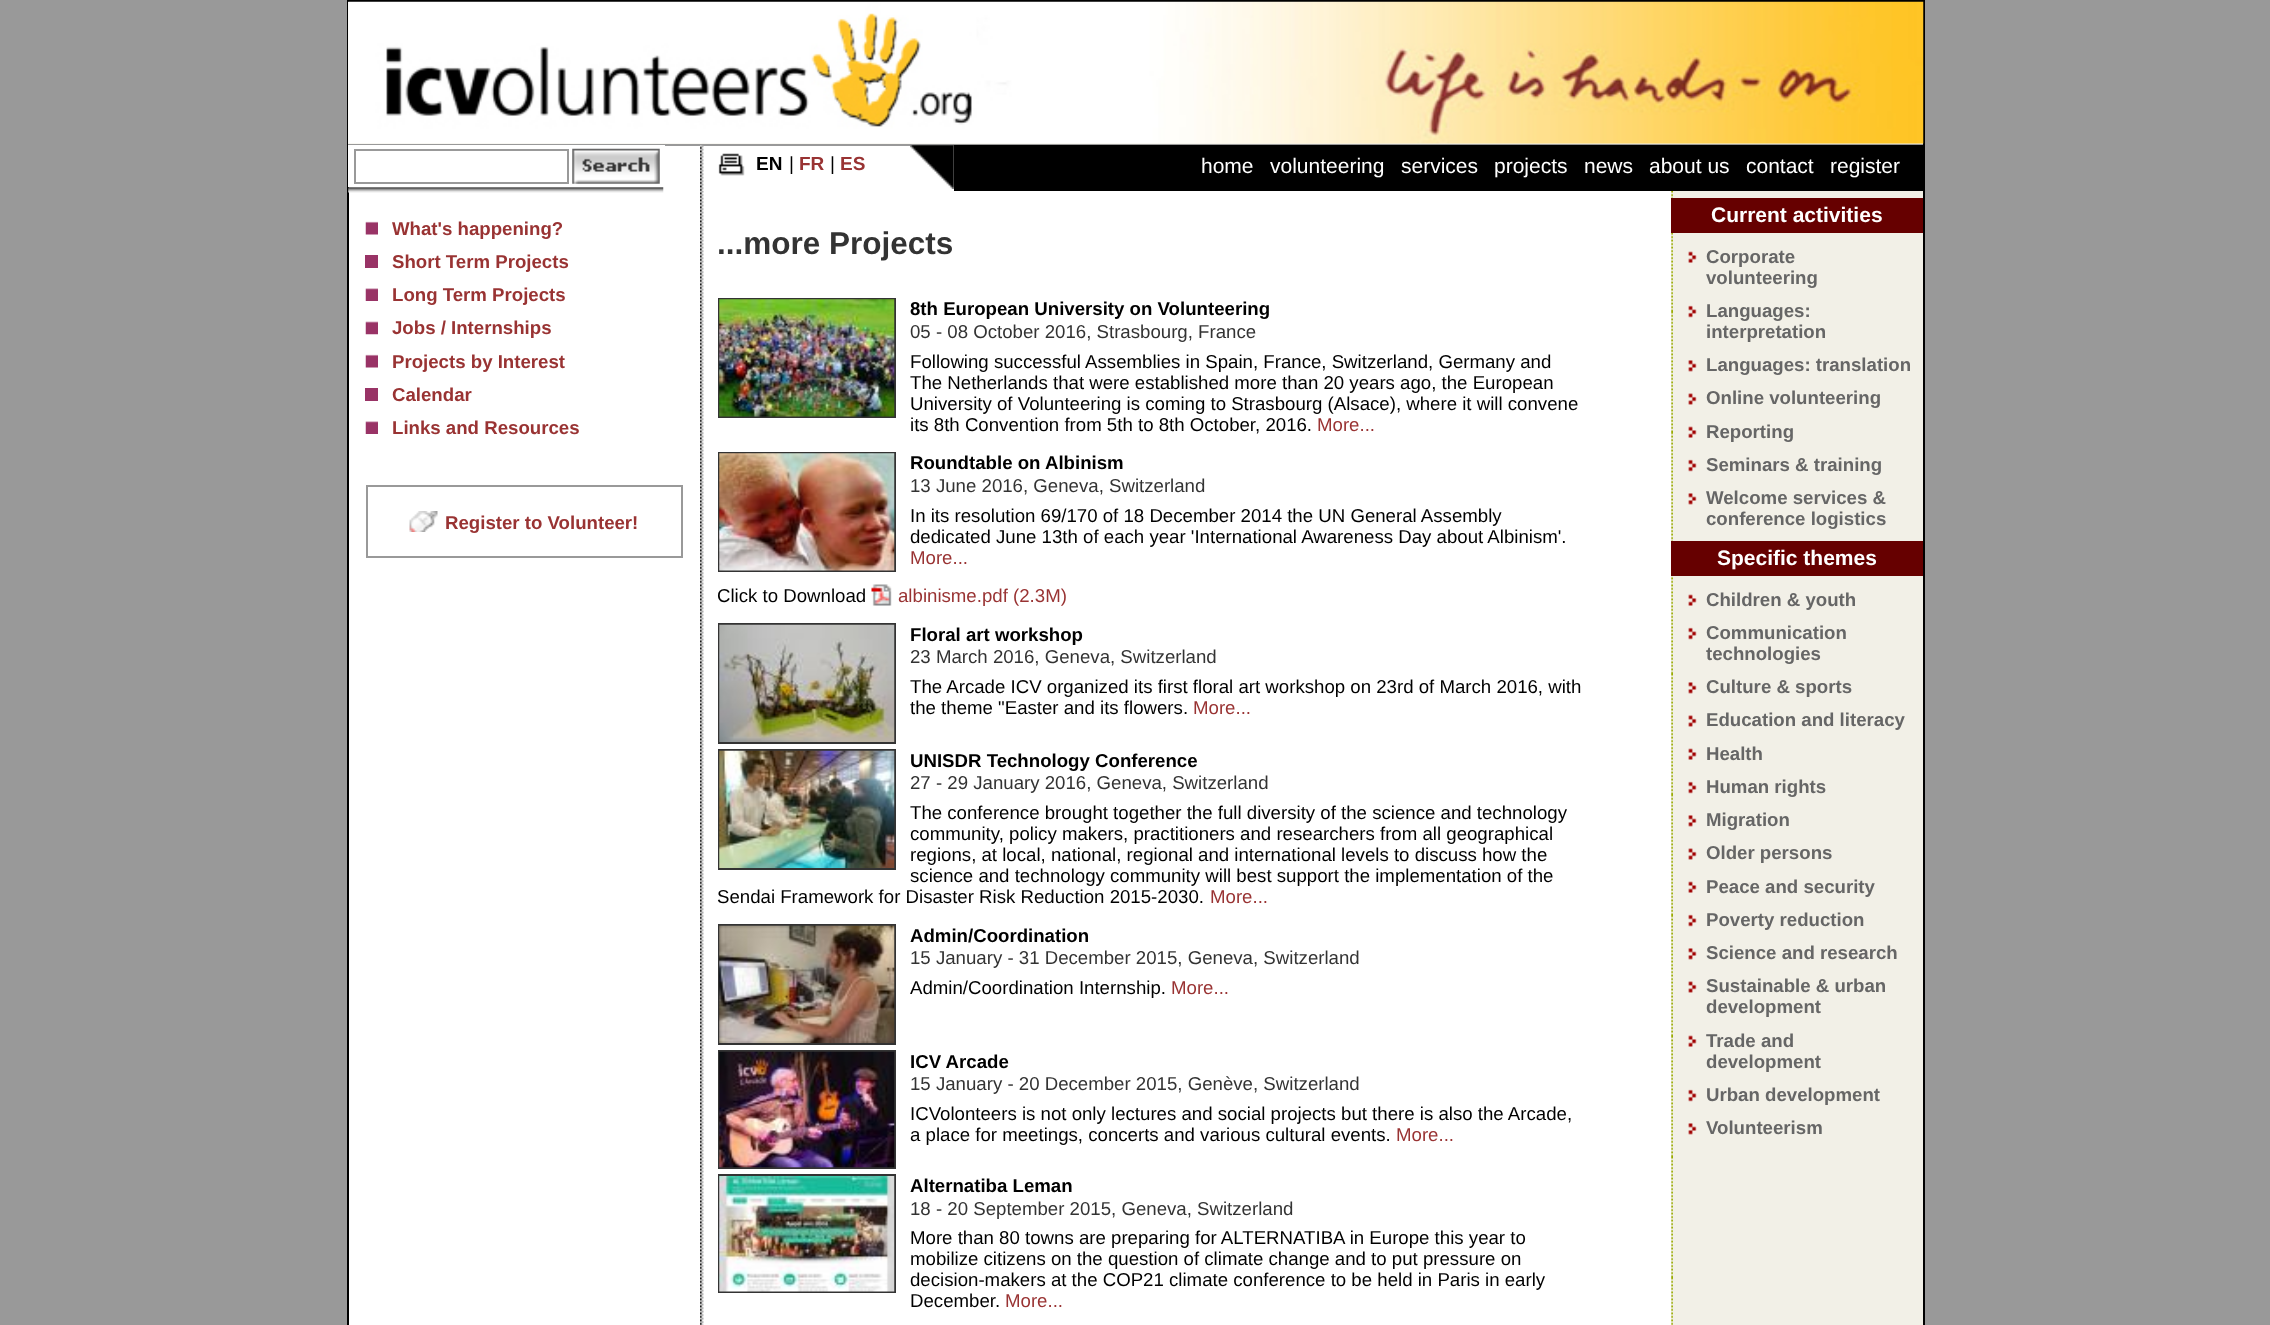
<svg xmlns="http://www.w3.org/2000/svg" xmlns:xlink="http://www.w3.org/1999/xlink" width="2270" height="1325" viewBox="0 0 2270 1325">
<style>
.cls-1{font:bold 19px Liberation Sans;fill:#000000}
.cls-2{font:19px Liberation Sans;fill:#000000}
.cls-3{font:bold 19px Liberation Sans;fill:#993333}
.cls-4{font:21px Liberation Sans;fill:#ffffff}
.cls-5{font:bold 18.65px Liberation Sans;fill:#993333}
.cls-6{font:bold 31.5px Liberation Sans;fill:#333333}
.cls-7{font:bold 18.65px Liberation Sans;fill:#000000}
.cls-8{font:18.65px Liberation Sans;fill:#333333}
.cls-9{font:18.65px Liberation Sans;fill:#000000}
.cls-10{font:18.65px Liberation Sans;fill:#993333}
.cls-11{font:bold 21px Liberation Sans;fill:#ffffff}
.cls-12{font:bold 18.65px Liberation Sans;fill:#666666}
</style>
<rect width="100%" height="100%" fill="#999999"/>
<rect fill="#ffffff" x="349" y="146" width="1322" height="1179"/>
<rect fill="none" stroke="#000000" stroke-width="2" x="348" y="1" width="1576" height="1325"/>
<rect fill="#f2f0e7" x="348" y="2" width="1575" height="142"/>
<rect fill="#999999" x="348" y="144" width="1" height="2"/>
<image xlink:href="image0.png" x="348" y="1" width="1576" height="143"/>
<image xlink:href="image1.png" x="700" y="145" width="4" height="46"/>
<image xlink:href="image2.png" x="718" y="153" width="27" height="23"/>
<image xlink:href="image3.png" x="910" y="145" width="44" height="44"/>
<rect fill="#000000" x="954" y="145" width="969" height="46"/>
<rect fill="#ffffff" x="348" y="145" width="317" height="42"/>
<rect fill="none" stroke="#999999" stroke-width="2" x="355" y="150" width="213" height="33"/>
<image xlink:href="image4.png" x="572" y="148" width="88" height="36"/>
<image xlink:href="image5.png" x="348" y="187" width="316" height="6"/>
<image xlink:href="image6.png" x="365" y="221" width="13" height="14"/>
<rect fill="#993366" x="365" y="255" width="13" height="13"/>
<image xlink:href="image7.png" x="365" y="288" width="13" height="13"/>
<image xlink:href="image8.png" x="365" y="321" width="13" height="14"/>
<image xlink:href="image6.png" x="365" y="354" width="13" height="14"/>
<rect fill="#993366" x="365" y="388" width="13" height="13"/>
<image xlink:href="image7.png" x="365" y="421" width="13" height="13"/>
<rect fill="none" stroke="#999999" stroke-width="2" x="367" y="486" width="315" height="71"/>
<image xlink:href="image9.png" x="409" y="511" width="29" height="21"/>
<image xlink:href="image10.png" x="700" y="190" width="4" height="1135"/>
<rect fill="none" stroke="#333333" stroke-width="2" x="719" y="299" width="176" height="118"/>
<image xlink:href="image11.png" x="719" y="299" width="176" height="118"/>
<rect fill="none" stroke="#333333" stroke-width="2" x="719" y="453" width="176" height="118"/>
<image xlink:href="image12.png" x="719" y="453" width="176" height="118"/>
<image xlink:href="image13.png" x="871" y="584" width="21" height="22"/>
<rect fill="none" stroke="#333333" stroke-width="2" x="719" y="624" width="176" height="119"/>
<image xlink:href="image14.png" x="719" y="624" width="176" height="118"/>
<rect fill="none" stroke="#333333" stroke-width="2" x="719" y="750" width="176" height="119"/>
<image xlink:href="image15.png" x="719" y="750" width="176" height="118"/>
<rect fill="none" stroke="#333333" stroke-width="2" x="719" y="925" width="176" height="119"/>
<image xlink:href="image16.png" x="719" y="925" width="176" height="118"/>
<rect fill="none" stroke="#333333" stroke-width="2" x="719" y="1051" width="176" height="117"/>
<image xlink:href="image17.png" x="719" y="1051" width="176" height="117"/>
<rect fill="none" stroke="#333333" stroke-width="2" x="719" y="1175" width="176" height="117"/>
<image xlink:href="image18.png" x="719" y="1176" width="176" height="116"/>
<rect fill="#f2f0e7" x="1671" y="191" width="252" height="1134"/>
<image xlink:href="image19.png" x="1671" y="191" width="2" height="1134"/>
<rect fill="#660000" x="1671" y="198" width="252" height="35"/>
<image xlink:href="image20.png" x="1688" y="251" width="9" height="12"/>
<image xlink:href="image21.png" x="1688" y="305" width="9" height="13"/>
<image xlink:href="image22.png" x="1688" y="360" width="9" height="12"/>
<image xlink:href="image23.png" x="1688" y="393" width="9" height="12"/>
<image xlink:href="image20.png" x="1688" y="426" width="9" height="12"/>
<image xlink:href="image21.png" x="1688" y="459" width="9" height="13"/>
<image xlink:href="image22.png" x="1688" y="493" width="9" height="12"/>
<rect fill="#660000" x="1671" y="541" width="252" height="35"/>
<image xlink:href="image20.png" x="1688" y="594" width="9" height="12"/>
<image xlink:href="image21.png" x="1688" y="627" width="9" height="13"/>
<image xlink:href="image22.png" x="1688" y="682" width="9" height="12"/>
<image xlink:href="image23.png" x="1688" y="715" width="9" height="12"/>
<image xlink:href="image20.png" x="1688" y="748" width="9" height="12"/>
<image xlink:href="image21.png" x="1688" y="781" width="9" height="13"/>
<image xlink:href="image22.png" x="1688" y="815" width="9" height="12"/>
<image xlink:href="image23.png" x="1688" y="848" width="9" height="12"/>
<image xlink:href="image20.png" x="1688" y="881" width="9" height="12"/>
<image xlink:href="image21.png" x="1688" y="914" width="9" height="13"/>
<image xlink:href="image22.png" x="1688" y="948" width="9" height="12"/>
<image xlink:href="image23.png" x="1688" y="981" width="9" height="12"/>
<image xlink:href="image20.png" x="1688" y="1035" width="9" height="12"/>
<image xlink:href="image21.png" x="1688" y="1089" width="9" height="13"/>
<image xlink:href="image22.png" x="1688" y="1123" width="9" height="12"/>
<text class="cls-1" x="756" y="170">EN</text>
<text class="cls-2" x="789" y="170">|</text>
<text class="cls-3" x="799" y="170">FR</text>
<text class="cls-2" x="830" y="170">|</text>
<text class="cls-3" x="840" y="170">ES</text>
<text class="cls-4" x="1201" y="173">home</text>
<text class="cls-4" x="1270" y="173">volunteering</text>
<text class="cls-4" x="1401" y="173">services</text>
<text class="cls-4" x="1494" y="173">projects</text>
<text class="cls-4" x="1584" y="173">news</text>
<text class="cls-4" x="1649" y="173">about us</text>
<text class="cls-4" x="1746" y="173">contact</text>
<text class="cls-4" x="1830" y="173">register</text>
<text class="cls-5"><tspan x="392" y="235">What's happening?</tspan><tspan x="392" y="268">Short Term Projects</tspan><tspan x="392" y="301">Long Term Projects</tspan><tspan x="392" y="334">Jobs / Internships</tspan><tspan x="392" y="368">Projects by Interest</tspan><tspan x="392" y="401">Calendar</tspan><tspan x="392" y="434">Links and Resources</tspan></text>
<text class="cls-5" x="445" y="529">Register to Volunteer!</text>
<text class="cls-6" x="717" y="254">...more Projects</text>
<text class="cls-7" x="910" y="315">8th European University on Volunteering</text>
<text class="cls-8" x="910" y="338">05 - 08 October 2016, Strasbourg, France</text>
<text class="cls-9"><tspan x="910" y="368">Following successful Assemblies in Spain, France, Switzerland, Germany and</tspan><tspan x="910" y="389">The Netherlands that were established more than 20 years ago, the European</tspan><tspan x="910" y="410">University of Volunteering is coming to Strasbourg (Alsace), where it will convene</tspan><tspan x="910" y="431">its 8th Convention from 5th to 8th October, 2016.</tspan></text>
<text class="cls-10" x="1317" y="431">More...</text>
<text class="cls-7" x="910" y="469">Roundtable on Albinism</text>
<text class="cls-8" x="910" y="492">13 June 2016, Geneva, Switzerland</text>
<text class="cls-9"><tspan x="910" y="522">In its resolution 69/170 of 18 December 2014 the UN General Assembly</tspan><tspan x="910" y="543">dedicated June 13th of each year 'International Awareness Day about Albinism'.</tspan></text>
<text class="cls-10" x="910" y="564">More...</text>
<text class="cls-9" x="717" y="602">Click to Download</text>
<text class="cls-10" x="898" y="602">albinisme.pdf (2.3M)</text>
<text class="cls-7" x="910" y="641">Floral art workshop</text>
<text class="cls-8" x="910" y="663">23 March 2016, Geneva, Switzerland</text>
<text class="cls-9"><tspan x="910" y="693">The Arcade ICV organized its first floral art workshop on 23rd of March 2016, with</tspan><tspan x="910" y="714">the theme "Easter and its flowers.</tspan></text>
<text class="cls-10" x="1193" y="714">More...</text>
<text class="cls-7" x="910" y="767">UNISDR Technology Conference</text>
<text class="cls-8" x="910" y="789">27 - 29 January 2016, Geneva, Switzerland</text>
<text class="cls-9"><tspan x="910" y="819">The conference brought together the full diversity of the science and technology</tspan><tspan x="910" y="840">community, policy makers, practitioners and researchers from all geographical</tspan><tspan x="910" y="861">regions, at local, national, regional and international levels to discuss how the</tspan><tspan x="910" y="882">science and technology community will best support the implementation of the</tspan></text>
<text class="cls-9" x="717" y="903">Sendai Framework for Disaster Risk Reduction 2015-2030.</text>
<text class="cls-10" x="1210" y="903">More...</text>
<text class="cls-7" x="910" y="942">Admin/Coordination</text>
<text class="cls-8" x="910" y="964">15 January - 31 December 2015, Geneva, Switzerland</text>
<text class="cls-9" x="910" y="994">Admin/Coordination Internship.</text>
<text class="cls-10" x="1171" y="994">More...</text>
<text class="cls-7" x="910" y="1068">ICV Arcade</text>
<text class="cls-8" x="910" y="1090">15 January - 20 December 2015, Genève, Switzerland</text>
<text class="cls-9"><tspan x="910" y="1120">ICVolonteers is not only lectures and social projects but there is also the Arcade,</tspan><tspan x="910" y="1141">a place for meetings, concerts and various cultural events.</tspan></text>
<text class="cls-10" x="1396" y="1141">More...</text>
<text class="cls-7" x="910" y="1192">Alternatiba Leman</text>
<text class="cls-8" x="910" y="1215">18 - 20 September 2015, Geneva, Switzerland</text>
<text class="cls-9"><tspan x="910" y="1244">More than 80 towns are preparing for ALTERNATIBA in Europe this year to</tspan><tspan x="910" y="1265">mobilize citizens on the question of climate change and to put pressure on</tspan><tspan x="910" y="1286">decision-makers at the COP21 climate conference to be held in Paris in early</tspan><tspan x="910" y="1307">December.</tspan></text>
<text class="cls-10" x="1005" y="1307">More...</text>
<text class="cls-11" x="1711" y="222">Current activities</text>
<text class="cls-12"><tspan x="1706" y="263">Corporate</tspan><tspan x="1706" y="284">volunteering</tspan><tspan x="1706" y="317">Languages:</tspan><tspan x="1706" y="338">interpretation</tspan><tspan x="1706" y="371">Languages: translation</tspan><tspan x="1706" y="404">Online volunteering</tspan><tspan x="1706" y="438">Reporting</tspan><tspan x="1706" y="471">Seminars &amp; training</tspan><tspan x="1706" y="504">Welcome services &amp;</tspan><tspan x="1706" y="525">conference logistics</tspan></text>
<text class="cls-11" x="1717" y="565">Specific themes</text>
<text class="cls-12"><tspan x="1706" y="606">Children &amp; youth</tspan><tspan x="1706" y="639">Communication</tspan><tspan x="1706" y="660">technologies</tspan><tspan x="1706" y="693">Culture &amp; sports</tspan><tspan x="1706" y="726">Education and literacy</tspan><tspan x="1706" y="760">Health</tspan><tspan x="1706" y="793">Human rights</tspan><tspan x="1706" y="826">Migration</tspan><tspan x="1706" y="859">Older persons</tspan><tspan x="1706" y="893">Peace and security</tspan><tspan x="1706" y="926">Poverty reduction</tspan><tspan x="1706" y="959">Science and research</tspan><tspan x="1706" y="992">Sustainable &amp; urban</tspan><tspan x="1706" y="1013">development</tspan><tspan x="1706" y="1047">Trade and</tspan><tspan x="1706" y="1068">development</tspan><tspan x="1706" y="1101">Urban development</tspan><tspan x="1706" y="1134">Volunteerism</tspan></text>
</svg>
